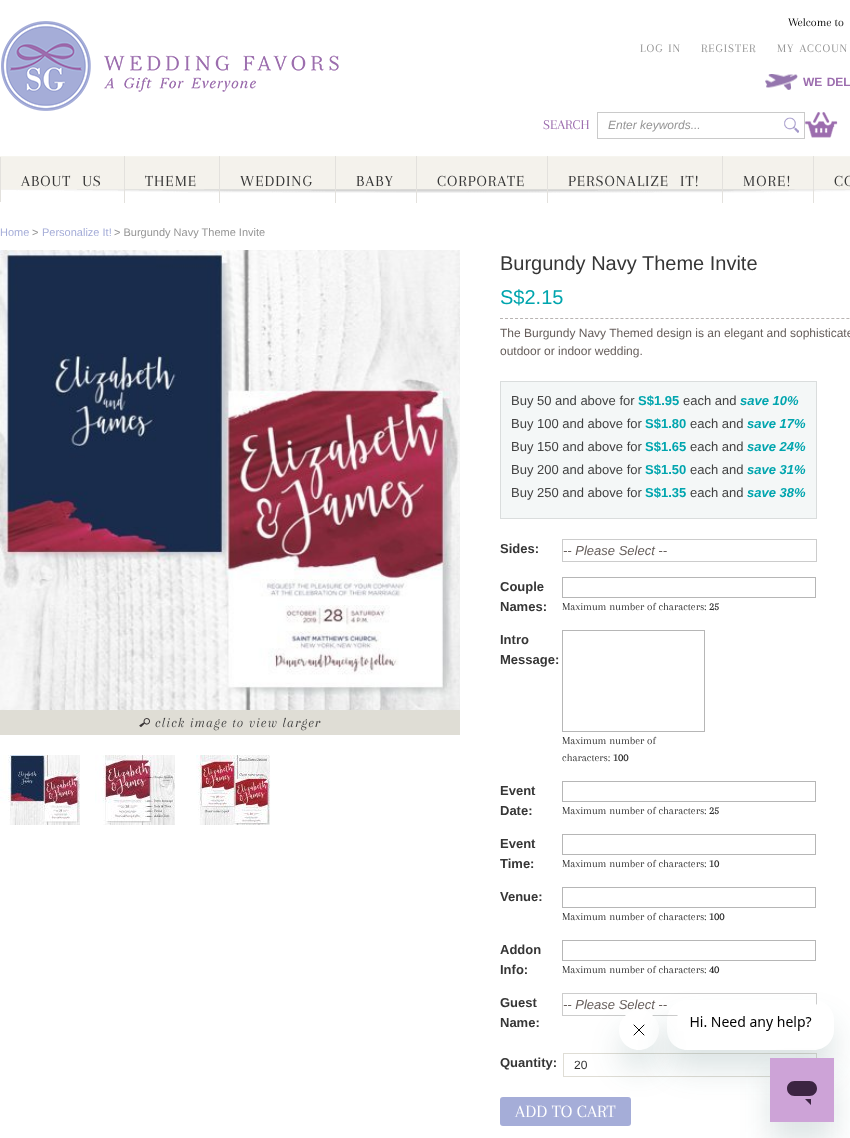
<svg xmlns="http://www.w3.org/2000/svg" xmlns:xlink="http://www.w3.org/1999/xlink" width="850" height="1138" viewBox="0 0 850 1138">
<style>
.cls-1{font:12px Arapey;fill:#000000}
.cls-2{font:12px Arapey;letter-spacing:1px;fill:#959595}
.cls-3{font:bold 12px Liberation Sans;fill:#9c6dae}
.cls-4{font:14px Arapey;fill:#9c6dae}
.cls-5{font:italic 12px Liberation Sans;fill:#959595}
.cls-6{font:16px Arapey;letter-spacing:1px;fill:#363636}
.cls-7{font:11px Liberation Sans;fill:#a5add8}
.cls-8{font:11px Liberation Sans;fill:#959595}
.cls-9{font:italic 14px Arapey;letter-spacing:1px;fill:#363636}
.cls-10{font:20px Liberation Sans;fill:#363636}
.cls-11{font:20px Liberation Sans;fill:#00a5ae}
.cls-12{font:12px Liberation Sans;fill:#665e5b}
.cls-13{font:13px Liberation Sans;fill:#424242}
.cls-14{font:bold 13px Liberation Sans;fill:#00a5ae}
.cls-15{font:italic bold 13px Liberation Sans;fill:#00a5ae}
.cls-16{font:bold 13px Liberation Sans;fill:#363636}
.cls-17{font:italic 13px Liberation Sans;fill:#665e5b}
.cls-18{font:11px Arapey;fill:#2f2f2f}
.cls-19{font:bold 11px Arapey;fill:#2f2f2f}
.cls-20{font:12px Liberation Sans;fill:#2f2f2f}
.cls-21{font:18px Arapey;fill:#ffffff}
</style>
<defs>
<clipPath id="clip1"><path d="M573 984H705V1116H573ZM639 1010C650 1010 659 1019 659 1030C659 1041 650 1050 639 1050C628 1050 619 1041 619 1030C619 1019 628 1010 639 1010Z" clip-rule="evenodd"/></clipPath>
<clipPath id="clip2"><path d="M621 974H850V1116H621ZM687 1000H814C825 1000 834 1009 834 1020V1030C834 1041 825 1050 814 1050H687C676 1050 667 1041 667 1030V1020C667 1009 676 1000 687 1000Z" clip-rule="evenodd"/></clipPath>
</defs>
<rect width="100%" height="100%" fill="#ffffff"/>
<image xlink:href="image0.png" x="1" y="21" width="338" height="90"/>
<image xlink:href="image1.png" x="765" y="74" width="33" height="16"/>
<rect fill="none" stroke="#cacaca" x="597.5" y="112.5" width="207" height="26"/>
<image xlink:href="image2.png" x="784" y="117" width="15" height="16"/>
<image xlink:href="image3.png" x="805" y="112" width="33" height="26"/>
<image xlink:href="image4.png" x="0" y="156" width="850" height="37"/>
<rect fill="#e3e1dd" x="0" y="157" width="1" height="45"/>
<rect fill="#e3e1dd" x="124" y="156" width="1" height="47"/>
<rect fill="#e3e1dd" x="219" y="156" width="1" height="47"/>
<rect fill="#e3e1dd" x="335" y="156" width="1" height="47"/>
<rect fill="#e3e1dd" x="416" y="156" width="1" height="47"/>
<rect fill="#e3e1dd" x="547" y="156" width="1" height="47"/>
<rect fill="#e3e1dd" x="722" y="156" width="1" height="47"/>
<rect fill="#e3e1dd" x="813" y="156" width="1" height="47"/>
<image xlink:href="image5.png" x="0" y="250" width="460" height="460"/>
<rect fill="#dfddd5" x="0" y="710" width="460" height="25"/>
<image xlink:href="image6.png" x="139" y="718" width="11" height="9"/>
<image xlink:href="image7.png" x="0" y="755" width="80" height="70"/>
<image xlink:href="image8.png" x="95" y="755" width="80" height="70"/>
<image xlink:href="image9.png" x="196" y="755" width="75" height="70"/>
<path fill="none" stroke="#b8b4b2" stroke-dasharray="3 2.02" d="M500 318.5H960"/>
<rect fill="#f4f7f7" stroke="#dadddd" x="500.5" y="381.5" width="316" height="137"/>
<rect fill="none" stroke="#cccccc" x="562.5" y="539.5" width="254" height="22"/>
<rect fill="none" stroke="#b6b6b6" x="562.5" y="577.5" width="253" height="20"/>
<rect fill="none" stroke="#b6b6b6" x="562.5" y="630.5" width="142" height="101"/>
<rect fill="none" stroke="#b6b6b6" x="562.5" y="781.5" width="253" height="20"/>
<rect fill="none" stroke="#b6b6b6" x="562.5" y="834.5" width="253" height="20"/>
<rect fill="none" stroke="#b6b6b6" x="562.5" y="887.5" width="253" height="20"/>
<rect fill="none" stroke="#b6b6b6" x="562.5" y="940.5" width="253" height="20"/>
<rect fill="none" stroke="#cccccc" x="562.5" y="993.5" width="254" height="22"/>
<rect fill="none" stroke="#dfddd5" x="563.5" y="1053.5" width="253" height="23"/>
<rect fill="#a5add8" x="500" y="1097" width="131" height="29" rx="3"/>
<g clip-path="url(#clip1)">
<rect fill="#17494d" fill-opacity="0.15" filter="blur(15px)" x="619" y="1030" width="40" height="40" rx="20"/>
</g>
<image xlink:href="image11.png" x="625" y="1015" width="28" height="21"/>
<g clip-path="url(#clip2)">
<rect fill="#17494d" fill-opacity="0.15" filter="blur(15px)" x="667" y="1020" width="167" height="50" rx="20"/>
</g>
<image xlink:href="image10.png" x="677" y="1004" width="140" height="27"/>
<rect fill="#17494d" fill-opacity="0.15" filter="blur(15px)" x="770" y="1078" width="64" height="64"/>
<image xlink:href="image12.png" x="770" y="1058" width="64" height="64"/>
<text class="cls-1" x="788" y="26">Welcome to</text>
<text class="cls-2" x="640" y="52" word-spacing="1">LOG IN</text>
<text class="cls-2" x="701" y="52">REGISTER</text>
<text class="cls-2" x="777" y="52" word-spacing="1">MY ACCOUN</text>
<text class="cls-3" x="803" y="86" word-spacing="1">WE DEL</text>
<text class="cls-4" x="543" y="129">SEARCH</text>
<text class="cls-5" x="608" y="129">Enter keywords...</text>
<text class="cls-6" x="21" y="186" word-spacing="6">ABOUT US</text>
<text class="cls-6" x="145" y="186">THEME</text>
<text class="cls-6" x="240" y="186">WEDDING</text>
<text class="cls-6" x="356" y="186">BABY</text>
<text class="cls-6" x="437" y="186">CORPORATE</text>
<text class="cls-6" x="568" y="186" word-spacing="6">PERSONALIZE IT!</text>
<text class="cls-6" x="743" y="186">MORE!</text>
<text class="cls-6" x="834" y="186" word-spacing="6">CO</text>
<text class="cls-7" x="0" y="236">Home</text>
<text class="cls-8" x="32" y="236">&gt;</text>
<text class="cls-7" x="42" y="236">Personalize It!</text>
<text class="cls-8" x="114" y="236">&gt; Burgundy Navy Theme Invite</text>
<text class="cls-9" x="155" y="727">click image to view larger</text>
<text class="cls-10" x="500" y="270">Burgundy Navy Theme Invite</text>
<text class="cls-11" x="500" y="304">S$2.15</text>
<text class="cls-12"><tspan x="500" y="337">The Burgundy Navy Themed design is an elegant and sophisticate</tspan><tspan x="500" y="355">outdoor or indoor wedding.</tspan></text>
<text class="cls-13" x="511" y="405">Buy 50 and above for</text>
<text class="cls-14" x="638" y="405">S$1.95</text>
<text class="cls-13" x="683" y="405">each and</text>
<text class="cls-15" x="740" y="405">save 10%</text>
<text class="cls-13" x="511" y="428">Buy 100 and above for</text>
<text class="cls-14" x="645" y="428">S$1.80</text>
<text class="cls-13" x="690" y="428">each and</text>
<text class="cls-15" x="747" y="428">save 17%</text>
<text class="cls-13" x="511" y="451">Buy 150 and above for</text>
<text class="cls-14" x="645" y="451">S$1.65</text>
<text class="cls-13" x="690" y="451">each and</text>
<text class="cls-15" x="747" y="451">save 24%</text>
<text class="cls-13" x="511" y="474">Buy 200 and above for</text>
<text class="cls-14" x="645" y="474">S$1.50</text>
<text class="cls-13" x="690" y="474">each and</text>
<text class="cls-15" x="747" y="474">save 31%</text>
<text class="cls-13" x="511" y="497">Buy 250 and above for</text>
<text class="cls-14" x="645" y="497">S$1.35</text>
<text class="cls-13" x="690" y="497">each and</text>
<text class="cls-15" x="747" y="497">save 38%</text>
<text class="cls-16" x="500" y="553">Sides:</text>
<text class="cls-17" x="563" y="555">-- Please Select --</text>
<text class="cls-16"><tspan x="500" y="591">Couple</tspan><tspan x="500" y="611">Names:</tspan></text>
<text class="cls-18" x="562" y="610">Maximum number of characters:</text>
<text class="cls-19" x="709" y="610">25</text>
<text class="cls-16"><tspan x="500" y="644">Intro</tspan><tspan x="500" y="664">Message:</tspan></text>
<text class="cls-18"><tspan x="562" y="744">Maximum number of</tspan><tspan x="562" y="761">characters:</tspan></text>
<text class="cls-19" x="613" y="761">100</text>
<text class="cls-16"><tspan x="500" y="795">Event</tspan><tspan x="500" y="815">Date:</tspan></text>
<text class="cls-18" x="562" y="814">Maximum number of characters:</text>
<text class="cls-19" x="709" y="814">25</text>
<text class="cls-16"><tspan x="500" y="848">Event</tspan><tspan x="500" y="868">Time:</tspan></text>
<text class="cls-18" x="562" y="867">Maximum number of characters:</text>
<text class="cls-19" x="709" y="867">10</text>
<text class="cls-16" x="500" y="901">Venue:</text>
<text class="cls-18" x="562" y="920">Maximum number of characters:</text>
<text class="cls-19" x="709" y="920">100</text>
<text class="cls-16"><tspan x="500" y="954">Addon</tspan><tspan x="500" y="974">Info:</tspan></text>
<text class="cls-18" x="562" y="973">Maximum number of characters:</text>
<text class="cls-19" x="709" y="973">40</text>
<text class="cls-16"><tspan x="500" y="1007">Guest</tspan><tspan x="500" y="1027">Name:</tspan></text>
<text class="cls-17" x="563" y="1009">-- Please Select --</text>
<text class="cls-16" x="500" y="1067">Quantity:</text>
<text class="cls-20" x="574" y="1069">20</text>
<text class="cls-21" x="515" y="1117">ADD TO CART</text>
</svg>
